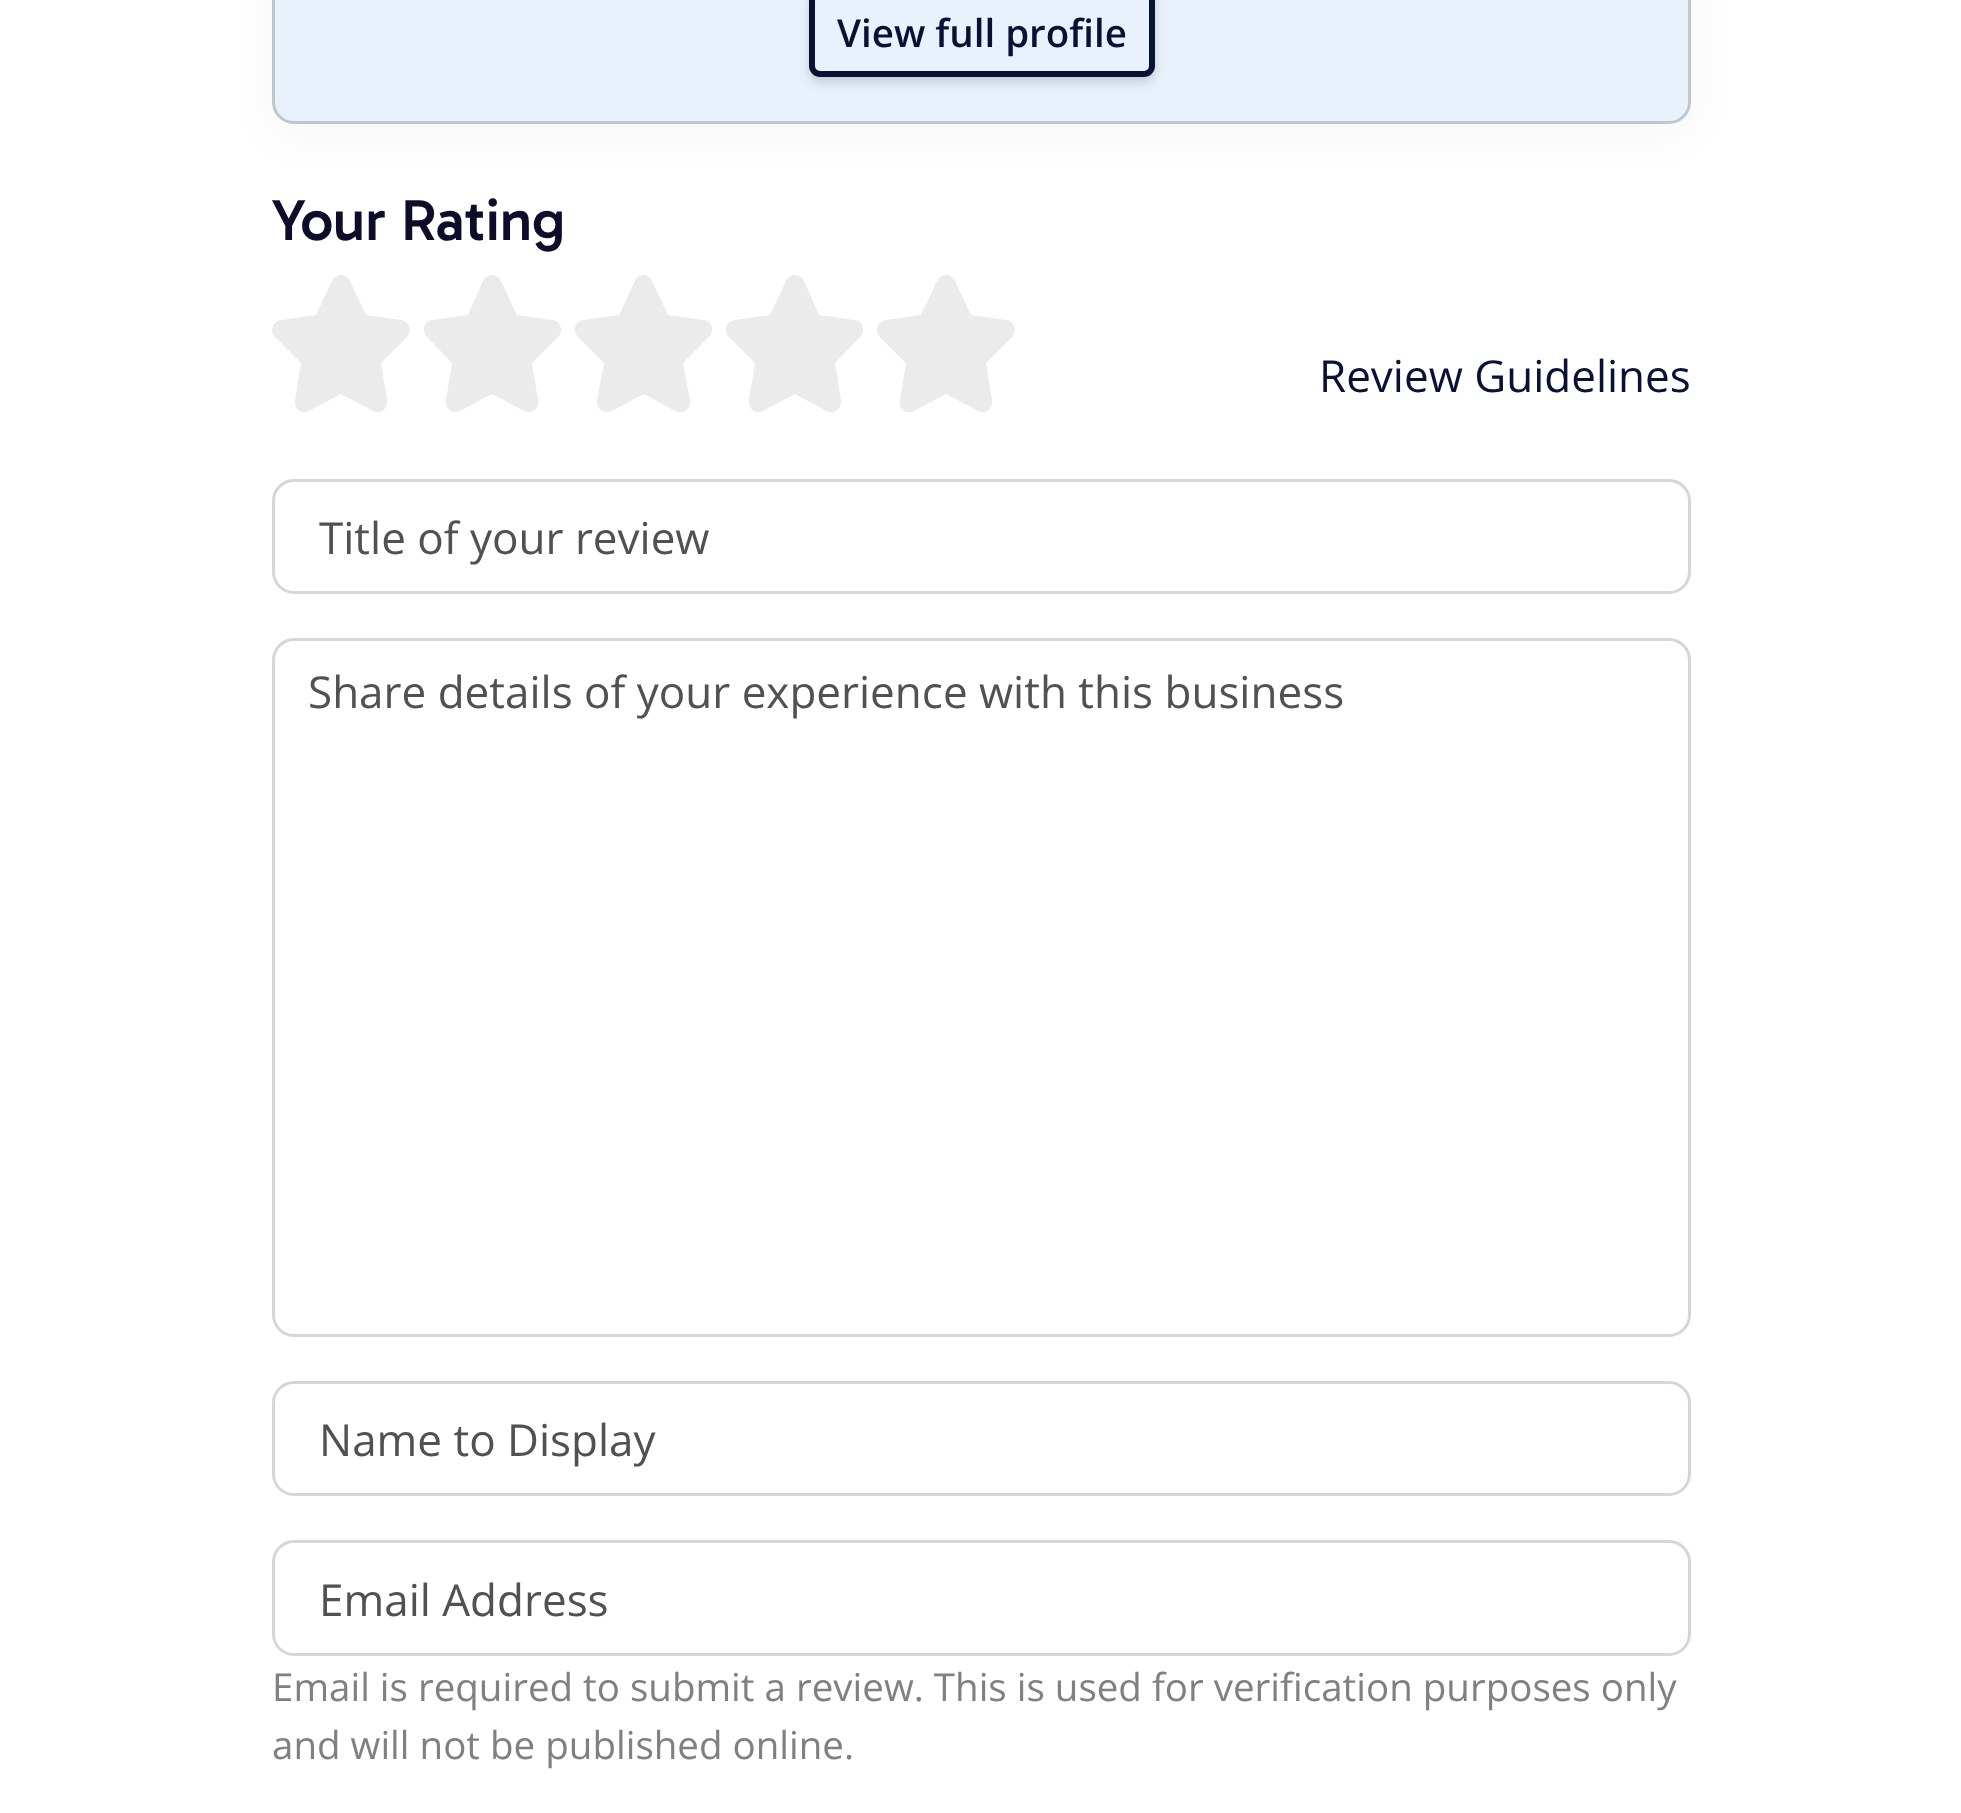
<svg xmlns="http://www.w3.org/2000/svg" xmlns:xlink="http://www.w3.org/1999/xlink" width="1961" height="1813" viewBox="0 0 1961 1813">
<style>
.cls-1{font:600 38.5px Open Sans;fill:#081235}
.cls-2{font:500 58.5px Gabarito;fill:#0d0d29}
.cls-3{font:44px Open Sans;fill:#081235}
.cls-4{font:44px Open Sans;fill:#515151}
.cls-5{font:38.5px Open Sans;fill:#808080}
</style>
<defs>
<clipPath id="clip1"><path d="M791 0H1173V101H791ZM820-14H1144C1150-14 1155-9 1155-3V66C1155 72 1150 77 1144 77H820C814 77 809 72 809 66V-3C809-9 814-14 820-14Z" clip-rule="evenodd"/></clipPath>
<clipPath id="clip2"><rect x="424" y="275" width="137" height="138"/></clipPath>
<clipPath id="clip3"><rect x="575" y="275" width="137" height="138"/></clipPath>
</defs>
<rect width="100%" height="100%" fill="#ffffff"/>
<rect fill="#000000" fill-opacity="0.04" filter="blur(22px)" x="272" y="-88" width="1419" height="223" rx="22"/>
<rect fill="#e9f2fc" x="272" y="-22" width="1419" height="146" rx="22"/>
<rect fill="none" stroke="#000000" stroke-opacity="0.18" stroke-width="3" x="273.5" y="-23.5" width="1416" height="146" rx="20.5"/>
<g clip-path="url(#clip1)">
<rect fill="#050a1f" fill-opacity="0.16" filter="blur(5.5px)" x="809" y="-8" width="346" height="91" rx="11"/>
</g>
<rect fill="none" stroke="#081235" stroke-width="6" x="812" y="-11" width="340" height="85" rx="8"/>
<path fill="#ebebec" d="M401 320L366 315L350 281C346 273 336 273 332 281L316 315L281 320C273 321 269 331 275 337L301 363L295 400C293 409 302 415 309 411L341 394L373 411C380 415 389 409 387 400L381 363L407 337C413 331 409 321 401 320Z"/>
<g clip-path="url(#clip2)">
<path fill="#ebebec" d="M552 320L517 315L501 281C497 273 487 273 483 281L468 315L432 320C424 321 421 331 427 337L452 363L446 400C445 409 453 415 460 411L492 394L524 411C531 415 540 409 538 400L532 363L558 337C564 331 561 321 552 320Z"/>
</g>
<g clip-path="url(#clip3)">
<path fill="#ebebec" d="M704 320L668 315L652 281C649 273 638 273 635 281L619 315L583 320C575 321 572 331 578 337L604 363L597 400C596 409 604 415 612 411L644 394L675 411C683 415 691 409 690 400L683 363L709 337C715 331 712 321 704 320Z"/>
</g>
<path fill="#ebebec" d="M855 320L819 315L804 281C800 273 789 273 786 281L770 315L735 320C726 321 723 331 729 337L755 363L749 400C747 409 756 415 763 411L795 394L826 411C834 415 842 409 841 400L835 363L860 337C866 331 863 321 855 320Z"/>
<path fill="#ebebec" d="M1006 320L971 315L955 281C951 273 941 273 937 281L921 315L886 320C878 321 874 331 880 337L906 363L900 400C898 409 907 415 914 411L946 394L978 411C985 415 994 409 992 400L986 363L1012 337C1018 331 1014 321 1006 320Z"/>
<rect fill="none" stroke="#d6d6d6" stroke-width="3" x="273.5" y="480.5" width="1416" height="112" rx="20.5"/>
<rect fill="none" stroke="#d6d6d6" stroke-width="3" x="273.5" y="639.5" width="1416" height="696" rx="20.5"/>
<rect fill="none" stroke="#d6d6d6" stroke-width="3" x="273.5" y="1382.5" width="1416" height="112" rx="20.5"/>
<rect fill="none" stroke="#d6d6d6" stroke-width="3" x="273.5" y="1541.5" width="1416" height="113" rx="20.5"/>
<text class="cls-1" x="837" y="47">View full profile</text>
<text class="cls-2" x="272" y="240">Your Rating</text>
<text class="cls-3" x="1319" y="392">Review Guidelines</text>
<text class="cls-4" x="319" y="554">Title of your review</text>
<text class="cls-4" x="308" y="708">Share details of your experience with this business</text>
<text class="cls-4" x="319" y="1456">Name to Display</text>
<text class="cls-4" x="319" y="1616">Email Address</text>
<text class="cls-5"><tspan x="272" y="1701">Email is required to submit a review. This is used for verification purposes only</tspan><tspan x="272" y="1759">and will not be published online.</tspan></text>
</svg>
